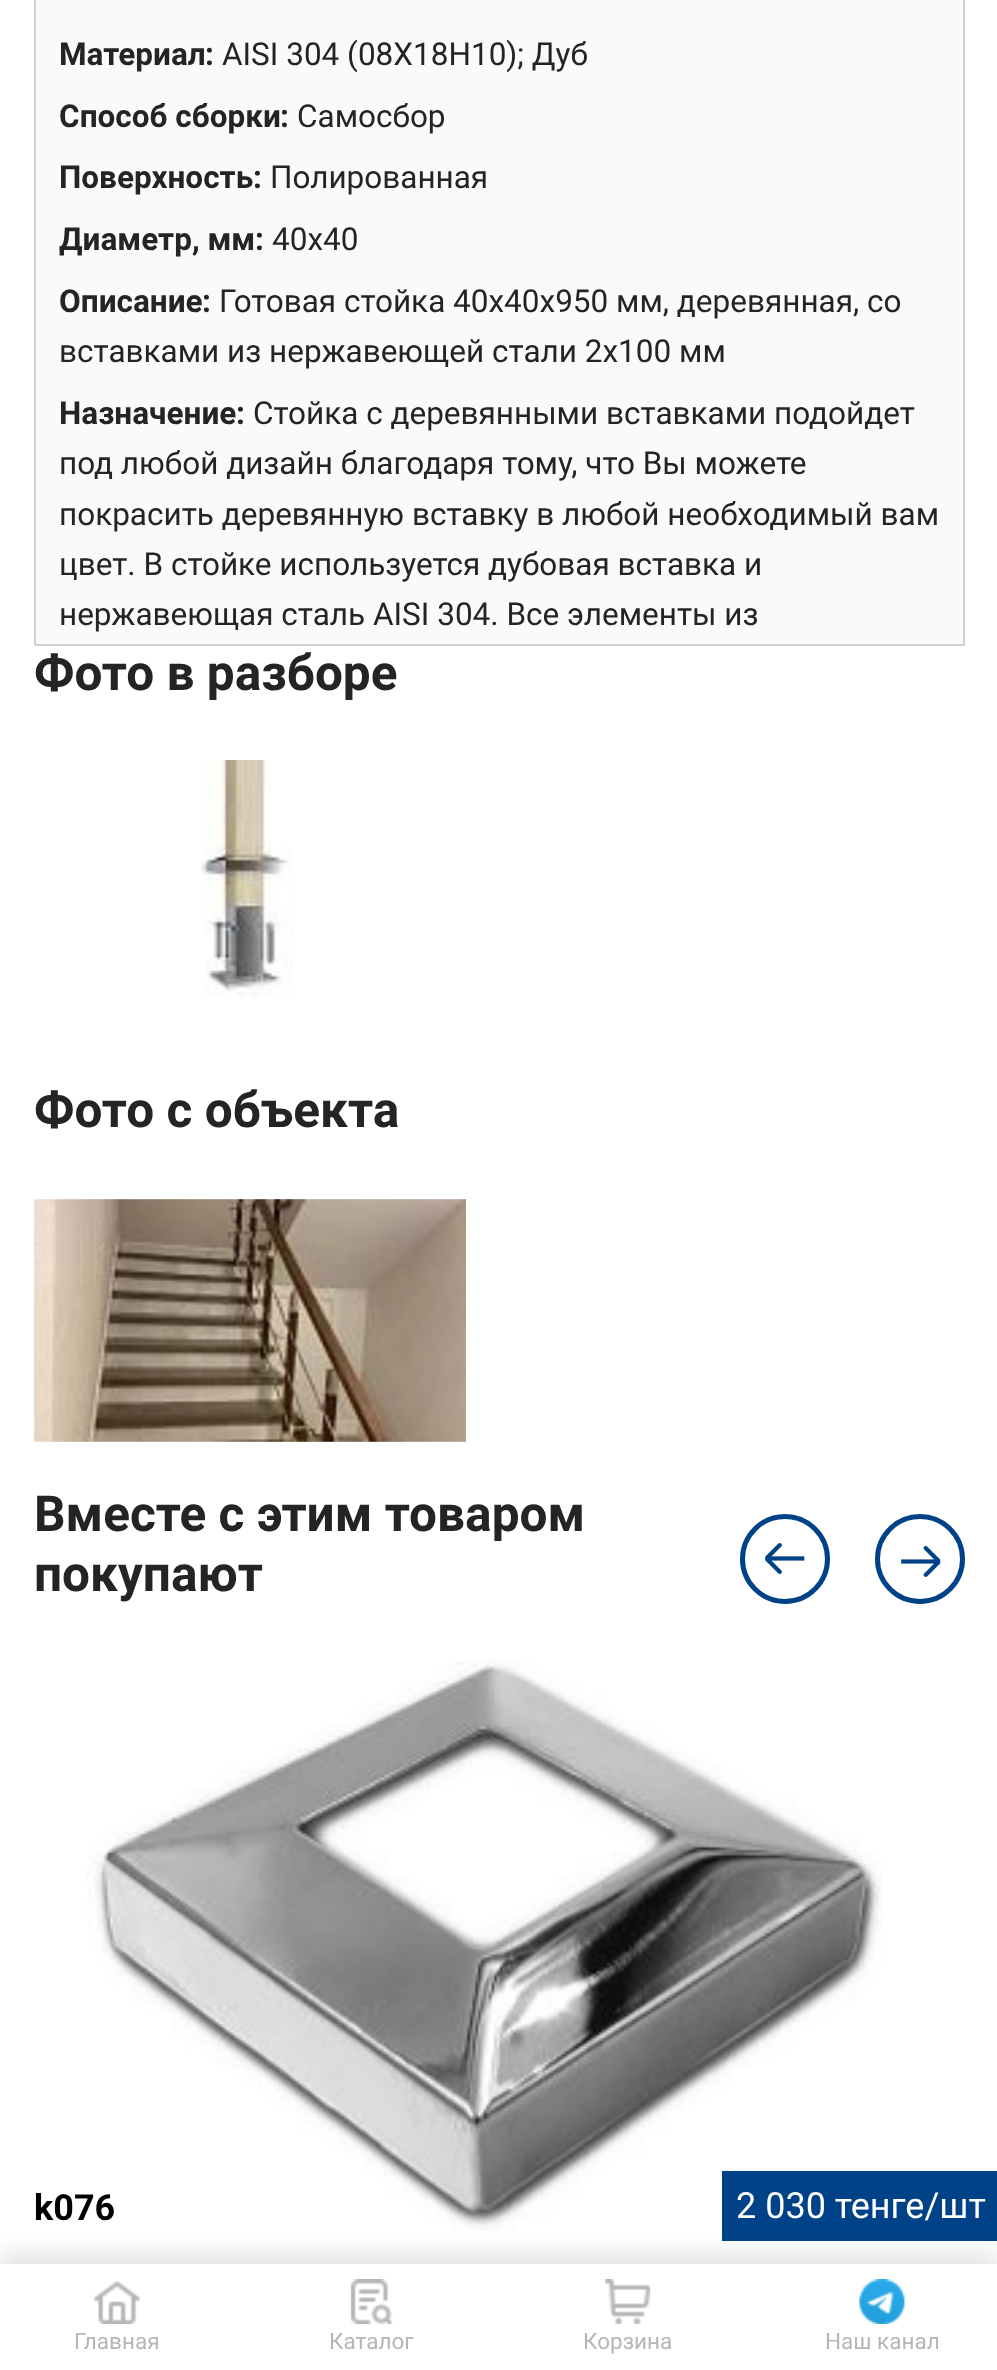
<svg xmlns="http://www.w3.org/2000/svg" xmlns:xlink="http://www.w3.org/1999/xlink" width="997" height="2370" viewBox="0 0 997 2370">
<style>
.cls-1{font:bold 31.5px Roboto;fill:#242424}
.cls-2{font:31.5px Roboto;fill:#242424}
.cls-3{font:bold 49.5px Roboto;fill:#242424}
.cls-4{font:bold 36px Roboto;fill:#000000}
.cls-5{font:36px Roboto;fill:#ffffff}
.cls-6{font:22.5px Roboto;fill:#b6b6b6}
</style>
<rect width="100%" height="100%" fill="#ffffff"/>
<rect fill="none" stroke="#d0d0d0" stroke-width="2" x="35" y="-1" width="929" height="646"/>
<rect fill="#fafafa" x="36" y="0" width="927" height="644"/>
<image xlink:href="image0.png" x="200" y="760" width="93" height="237"/>
<image xlink:href="image1.png" x="34" y="1199" width="432" height="243"/>
<circle fill="none" stroke="#004288" stroke-width="5" cx="785" cy="1559" r="42.5"/>
<image xlink:href="image2.png" x="765" y="1543" width="40" height="31"/>
<circle fill="none" stroke="#004288" stroke-width="5" cx="920" cy="1559" r="42.5"/>
<image xlink:href="image3.png" x="901" y="1546" width="40" height="31"/>
<image xlink:href="image4.png" x="87" y="1660" width="795" height="571"/>
<rect fill="#004288" x="722" y="2171" width="275" height="70"/>
<rect fill="#000000" fill-opacity="0.1" filter="blur(11px)" x="0" y="2252" width="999" height="108"/>
<rect fill="#ffffff" x="0" y="2264" width="997" height="106"/>
<image xlink:href="image5.png" x="94" y="2281" width="47" height="43"/>
<image xlink:href="image6.png" x="350" y="2279" width="43" height="45"/>
<image xlink:href="image7.png" x="605" y="2279" width="46" height="45"/>
<image xlink:href="image8.png" x="859" y="2279" width="47" height="45"/>
<text class="cls-1" x="59" y="65">Материал</text>
<text class="cls-1" x="205" y="65">:</text>
<text class="cls-2" x="222" y="65">AISI 304 (08Х18Н10); Дуб</text>
<text class="cls-1" x="59" y="127">Способ сборки</text>
<text class="cls-1" x="280" y="127">:</text>
<text class="cls-2" x="297" y="127">Самосбор</text>
<text class="cls-1" x="59" y="188">Поверхность</text>
<text class="cls-1" x="253" y="188">:</text>
<text class="cls-2" x="270" y="188">Полированная</text>
<text class="cls-1" x="59" y="250">Диаметр, мм</text>
<text class="cls-1" x="255" y="250">:</text>
<text class="cls-2" x="272" y="250">40х40</text>
<text class="cls-1" x="59" y="312">Описание</text>
<text class="cls-1" x="202" y="312">:</text>
<text class="cls-2" x="219" y="312">Готовая стойка 40х40х950 мм, деревянная, со</text>
<text class="cls-2" x="59" y="362">вставками из нержавеющей стали 2х100 мм</text>
<text class="cls-1" x="59" y="424">Назначение</text>
<text class="cls-1" x="236" y="424">:</text>
<text class="cls-2" x="253" y="424">Стойка с деревянными вставками подойдет</text>
<text class="cls-2"><tspan x="59" y="474">под любой дизайн благодаря тому, что Вы можете</tspan><tspan x="59" y="525">покрасить деревянную вставку в любой необходимый вам</tspan><tspan x="59" y="575">цвет. В стойке используется дубовая вставка и</tspan><tspan x="59" y="625">нержавеющая сталь AISI 304. Все элементы из</tspan></text>
<text class="cls-3" x="34" y="690">Фото в разборе</text>
<text class="cls-3" x="34" y="1127">Фото с объекта</text>
<text class="cls-3"><tspan x="34" y="1531">Вместе с этим товаром</tspan><tspan x="34" y="1591">покупают</tspan></text>
<text class="cls-4" x="34" y="2220">k076</text>
<text class="cls-5" x="736" y="2218">2 030 тенге/шт</text>
<text class="cls-6" x="74" y="2349">Главная</text>
<text class="cls-6" x="329" y="2349">Каталог</text>
<text class="cls-6" x="583" y="2349">Корзина</text>
<text class="cls-6" x="825" y="2349">Наш канал</text>
</svg>
